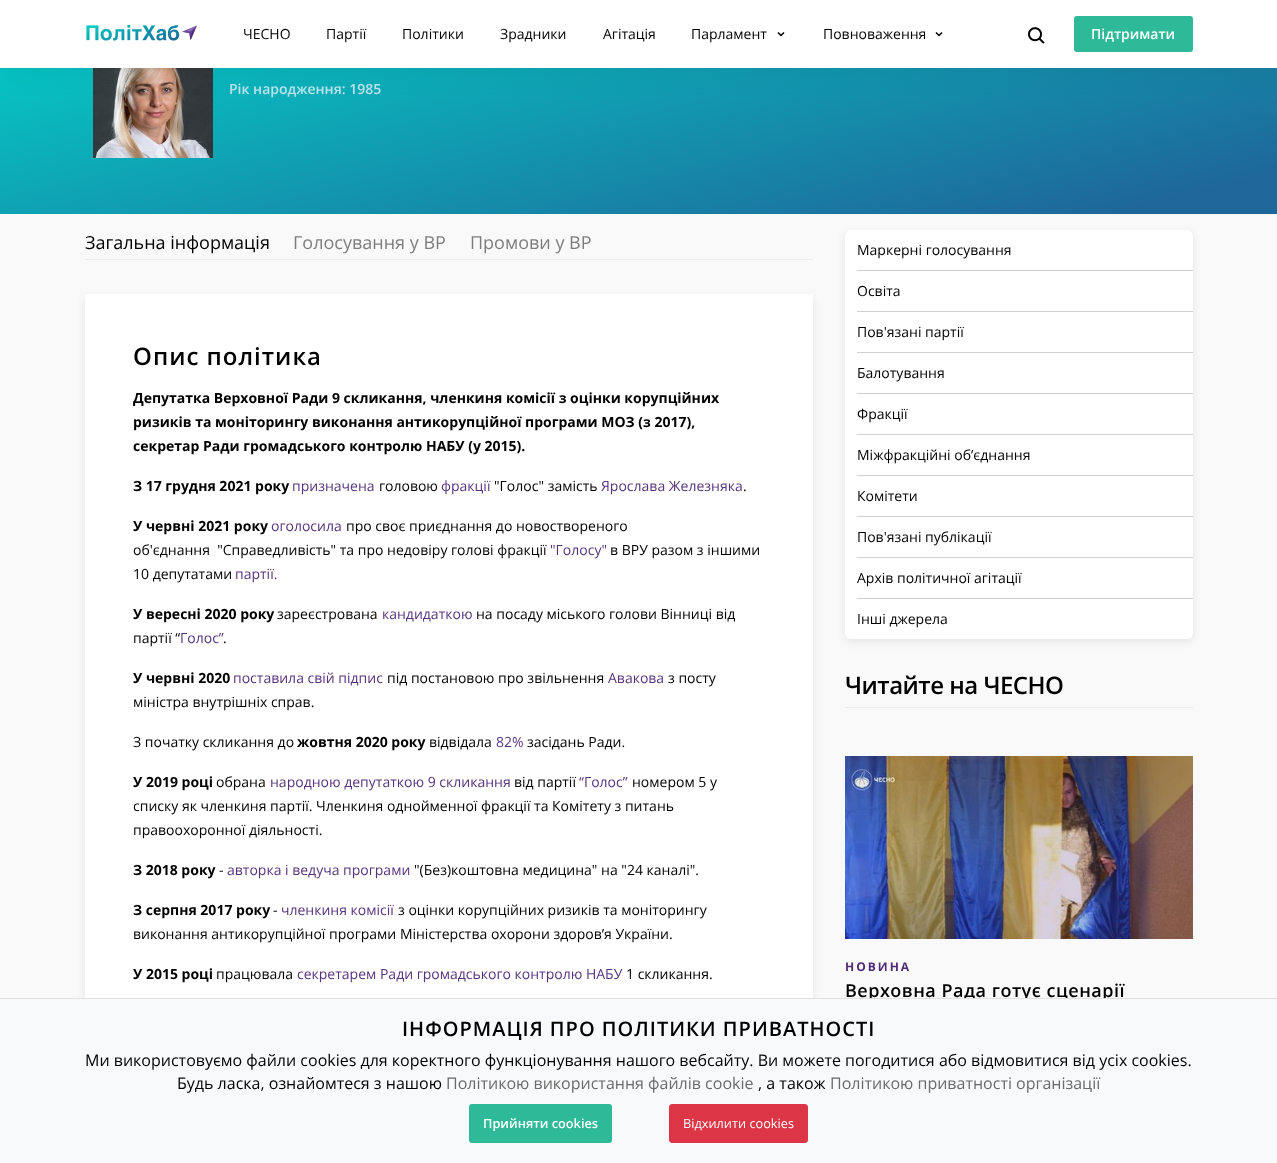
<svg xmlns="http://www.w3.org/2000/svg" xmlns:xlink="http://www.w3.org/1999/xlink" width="1277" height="1163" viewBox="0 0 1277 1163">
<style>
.cls-1{font:14px Open Sans;fill:#000000}
.cls-2{font:600 14px Open Sans;fill:#ffffff}
.cls-3{font:600 14px Open Sans;fill:#b7e4e9}
.cls-4{font:18px Open Sans;fill:#000000}
.cls-5{font:18px Open Sans;fill:#7d7d7d}
.cls-6{font:600 24px Open Sans;letter-spacing:1px;fill:#000000}
.cls-7{font:bold 14px Open Sans;fill:#000000}
.cls-8{font:14px Open Sans;fill:#58347e}
.cls-9{font:600 24px Open Sans;letter-spacing:-0.5px;fill:#000000}
.cls-10{font:bold 12px Open Sans;letter-spacing:2px;fill:#502b78}
.cls-11{font:600 18px Open Sans;letter-spacing:0.5px;fill:#000000}
.cls-12{font:600 20px Open Sans;letter-spacing:1px;fill:#000000}
.cls-13{font:16px Open Sans;fill:#000000}
.cls-14{font:16px Open Sans;fill:#6a6a6a}
.cls-15{font:600 12.75px Open Sans;fill:#ffffff}
.cls-16{font:12.75px Open Sans;fill:#ffffff}
</style>
<defs>
<linearGradient id="g1" gradientUnits="userSpaceOnUse" x1="572" y1="-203" x2="705" y2="351"><stop offset="0.07" stop-color="#01d9cc"/><stop offset="0.93" stop-color="#1e679a"/></linearGradient>
</defs>
<rect width="100%" height="100%" fill="#ffffff"/>
<rect fill="url(#g1)" x="0" y="68" width="1277" height="146"/>
<image xlink:href="image2.png" x="93" y="68" width="120" height="90"/>
<rect fill="#000000" fill-opacity="0.07" filter="blur(14px)" x="0" y="2" width="1277" height="68"/>
<rect fill="#ffffff" x="0" y="0" width="1277" height="68"/>
<image xlink:href="image0.png" x="86" y="24" width="111" height="17"/>
<path fill="none" stroke="#000000" stroke-width="1.5" d="M778 32.5L781 35.5L784 32.5"/>
<path fill="none" stroke="#000000" stroke-width="1.5" d="M936 32.5L939 35.5L942 32.5"/>
<image xlink:href="image1.png" x="1028" y="27" width="17" height="17"/>
<rect fill="#2eb998" x="1074" y="16" width="119" height="36" rx="3"/>
<rect fill="#f9f9fa" x="0" y="214" width="1277" height="784"/>
<rect fill="#ececec" x="85" y="259" width="728" height="1"/>
<rect fill="#000000" fill-opacity="0.08" filter="blur(4px)" x="85" y="297" width="728" height="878"/>
<rect fill="#ffffff" x="85" y="294" width="728" height="704"/>
<rect fill="#000000" fill-opacity="0.08" filter="blur(4px)" x="845" y="233" width="348" height="409" rx="6"/>
<rect fill="#ffffff" x="845" y="230" width="348" height="409" rx="6"/>
<rect fill="#d1d1d1" x="857" y="270" width="336" height="1"/>
<rect fill="#d1d1d1" x="857" y="311" width="336" height="1"/>
<rect fill="#d1d1d1" x="857" y="352" width="336" height="1"/>
<rect fill="#d1d1d1" x="857" y="393" width="336" height="1"/>
<rect fill="#d1d1d1" x="857" y="434" width="336" height="1"/>
<rect fill="#d1d1d1" x="857" y="475" width="336" height="1"/>
<rect fill="#d1d1d1" x="857" y="516" width="336" height="1"/>
<rect fill="#d1d1d1" x="857" y="557" width="336" height="1"/>
<rect fill="#d1d1d1" x="857" y="598" width="336" height="1"/>
<rect fill="#ececec" x="845" y="707" width="348" height="1"/>
<image xlink:href="image3.png" x="845" y="756" width="348" height="183"/>
<text class="cls-1" x="243" y="39">ЧЕСНО</text>
<text class="cls-1" x="326" y="39">Партії</text>
<text class="cls-1" x="402" y="39">Політики</text>
<text class="cls-1" x="500" y="39">Зрадники</text>
<text class="cls-1" x="603" y="39">Агітація</text>
<text class="cls-1" x="691" y="39">Парламент</text>
<text class="cls-1" x="823" y="39">Повноваження</text>
<text class="cls-2" x="1091" y="39">Підтримати</text>
<text class="cls-3" x="229" y="94">Рік народження: 1985</text>
<text class="cls-4" x="85" y="249">Загальна інформація</text>
<text class="cls-5" x="293" y="249">Голосування у ВР</text>
<text class="cls-5" x="470" y="249">Промови у ВР</text>
<text class="cls-6" x="133" y="365">Опис політика</text>
<text class="cls-7"><tspan x="133" y="403">Депутатка Верховної Ради 9 скликання, членкиня комісії з оцінки корупційних</tspan><tspan x="133" y="427">ризиків та моніторингу виконання антикорупційної програми МОЗ (з 2017),</tspan><tspan x="133" y="451">секретар Ради громадського контролю НАБУ (у 2015).</tspan></text>
<text class="cls-7" x="133" y="491">З 17 грудня 2021 року</text>
<text class="cls-8" x="292" y="491">призначена</text>
<text class="cls-1" x="379" y="491">головою</text>
<text class="cls-8" x="441" y="491">фракції</text>
<text class="cls-1" x="494" y="491">"Голос" замість</text>
<text class="cls-8" x="601" y="491">Ярослава Железняка</text>
<text class="cls-1" x="743" y="491">.</text>
<text class="cls-7" x="133" y="531">У червні 2021 року</text>
<text class="cls-8" x="271" y="531">оголосила</text>
<text class="cls-1" x="346" y="531">про своє приєднання до новоствореного</text>
<text class="cls-1" xml:space="preserve" x="133" y="555">об'єднання  "Справедливість" та про недовіру голові фракції</text>
<text class="cls-8" x="550" y="555">"Голосу"</text>
<text class="cls-1" x="610" y="555">в ВРУ разом з іншими</text>
<text class="cls-1" x="133" y="579">10 депутатами</text>
<text class="cls-8" x="235" y="579">партії.</text>
<text class="cls-7" x="133" y="619">У вересні 2020 року</text>
<text class="cls-1" x="277" y="619">зареєстрована</text>
<text class="cls-8" x="382" y="619">кандидаткою</text>
<text class="cls-1" x="476" y="619">на посаду міського голови Вінниці від</text>
<text class="cls-1" x="133" y="643">партії “</text>
<text class="cls-8" x="180" y="643">Голос”</text>
<text class="cls-1" x="223" y="643">.</text>
<text class="cls-7" x="133" y="683">У червні 2020</text>
<text class="cls-8" x="233" y="683">поставила свій підпис</text>
<text class="cls-1" x="387" y="683">під постановою про звільнення</text>
<text class="cls-8" x="608" y="683">Авакова</text>
<text class="cls-1" x="668" y="683">з посту</text>
<text class="cls-1" x="133" y="707">міністра внутрішніх справ.</text>
<text class="cls-1" x="133" y="747">З початку скликання до</text>
<text class="cls-7" x="297" y="747">жовтня 2020 року</text>
<text class="cls-1" x="429" y="747">відвідала</text>
<text class="cls-8" x="496" y="747">82%</text>
<text class="cls-1" x="527" y="747">засідань Ради.</text>
<text class="cls-7" x="133" y="787">У 2019 році</text>
<text class="cls-1" x="216" y="787">обрана</text>
<text class="cls-8" x="270" y="787">народною депутаткою 9 скликання</text>
<text class="cls-1" x="514" y="787">від партії</text>
<text class="cls-8" x="579" y="787">“Голос”</text>
<text class="cls-1" x="632" y="787">номером 5 у</text>
<text class="cls-1"><tspan x="133" y="811">списку як членкиня партії. Членкиня однойменної фракції та Комітету з питань</tspan><tspan x="133" y="835">правоохоронної діяльності.</tspan></text>
<text class="cls-7" x="133" y="875">З 2018 року</text>
<text class="cls-1" x="219" y="875">-</text>
<text class="cls-8" x="227" y="875">авторка і ведуча програми</text>
<text class="cls-1" x="414" y="875">"(Без)коштовна медицина" на "24 каналі".</text>
<text class="cls-7" x="133" y="915">З серпня 2017 року</text>
<text class="cls-1" x="273" y="915">-</text>
<text class="cls-8" x="281" y="915">членкиня комісії</text>
<text class="cls-1" x="398" y="915">з оцінки корупційних ризиків та моніторингу</text>
<text class="cls-1" x="133" y="939">виконання антикорупційної програми Міністерства охорони здоров’я України.</text>
<text class="cls-7" x="133" y="979">У 2015 році</text>
<text class="cls-1" x="216" y="979">працювала</text>
<text class="cls-8" x="297" y="979">секретарем Ради громадського контролю НАБУ</text>
<text class="cls-1" x="626" y="979">1 скликання.</text>
<text class="cls-1" x="857" y="255">Маркерні голосування</text>
<text class="cls-1" x="857" y="296">Освіта</text>
<text class="cls-1" x="857" y="337">Пов'язані партії</text>
<text class="cls-1" x="857" y="378">Балотування</text>
<text class="cls-1" x="857" y="419">Фракції</text>
<text class="cls-1" x="857" y="460">Міжфракційні обʼєднання</text>
<text class="cls-1" x="857" y="501">Комітети</text>
<text class="cls-1" x="857" y="542">Пов'язані публікації</text>
<text class="cls-1" x="857" y="583">Архів політичної агітації</text>
<text class="cls-1" x="857" y="624">Інші джерела</text>
<text class="cls-9" x="845" y="694">Читайте на ЧЕСНО</text>
<text class="cls-10" x="845" y="971">НОВИНА</text>
<text class="cls-11" x="845" y="997">Верховна Рада готує сценарії</text>
<rect fill="#f8f9fa" x="0" y="999" width="1277" height="164"/>
<rect fill="#e3e0e0" x="0" y="998" width="1277" height="1"/>
<text class="cls-12" x="402" y="1036">ІНФОРМАЦІЯ ПРО ПОЛІТИКИ ПРИВАТНОСТІ</text>
<text class="cls-13" x="85" y="1066">Ми використовуємо файли cookies для коректного функціонування нашого вебсайту. Ви можете погодитися або відмовитися від усіх cookies.</text>
<text class="cls-13" x="177" y="1089">Будь ласка, ознайомтеся з нашою</text>
<text class="cls-14" x="446" y="1089">Політикою використання файлів cookie</text>
<text class="cls-13" x="758" y="1089">, а також</text>
<text class="cls-14" x="830" y="1089">Політикою приватності організації</text>
<rect fill="#2eb998" x="469" y="1104" width="143" height="39" rx="3"/>
<text class="cls-15" x="483" y="1128">Прийняти cookies</text>
<rect fill="#dc3545" stroke="#dc3545" x="669.5" y="1104.5" width="138" height="38" rx="2.5"/>
<text class="cls-16" x="683" y="1128">Відхилити cookies</text>
</svg>
